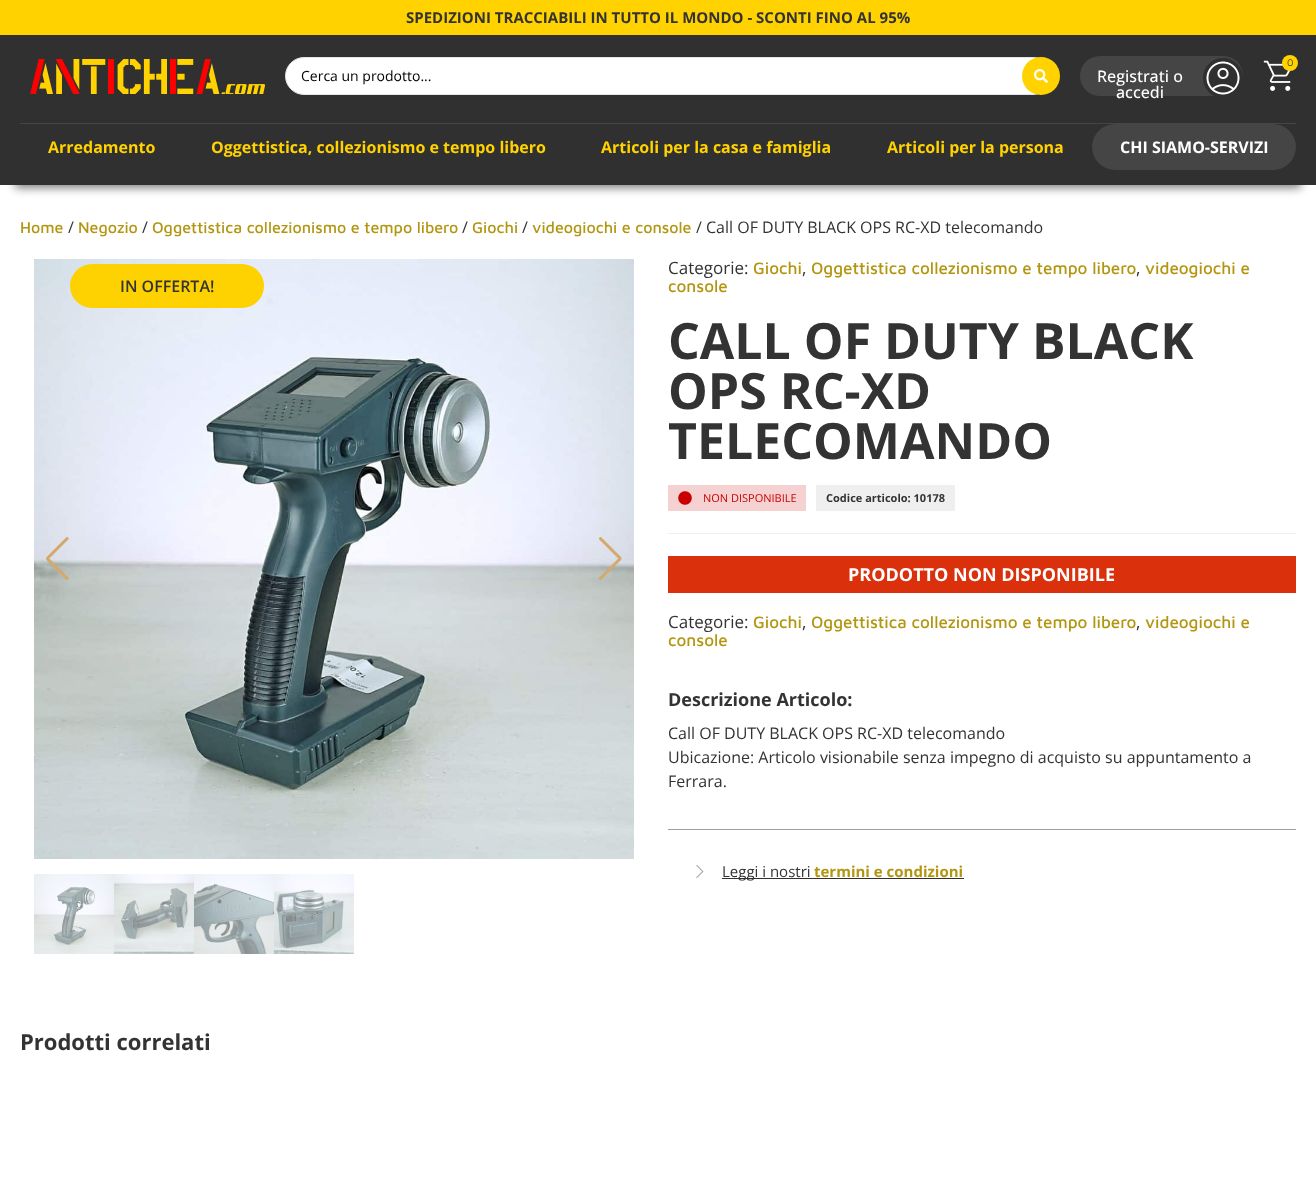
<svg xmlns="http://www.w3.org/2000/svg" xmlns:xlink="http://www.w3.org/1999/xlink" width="1316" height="1185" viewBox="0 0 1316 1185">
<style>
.cls-1{font:bold 15px Open Sans;fill:#333333}
.cls-2{font:10px Maven Pro;fill:#333333}
.cls-3{font:14px Open Sans;fill:#000000}
.cls-4{font:500 16px Open Sans;fill:#ffffff}
.cls-5{font:bold 16px Open Sans;fill:#ffd200}
.cls-6{font:bold 16px Open Sans;fill:#ffffff}
.cls-7{font:500 16px Maven Pro;fill:#b29611}
.cls-8{font:16px Open Sans;fill:#333333}
.cls-9{font:600 16px Open Sans;fill:#333333}
.cls-10{font:17px Open Sans;fill:#333333}
.cls-11{font:500 17px Maven Pro;fill:#b29611}
.cls-12{font:bold 50px Open Sans;fill:#333333}
.cls-13{font:11px Open Sans;fill:#ca0000}
.cls-14{font:bold 11px Open Sans;fill:#333333}
.cls-15{font:bold 18px Open Sans;fill:#ffffff}
.cls-16{font:bold 18px Open Sans;fill:#333333}
.cls-17{font:15px Open Sans;fill:#333333}
.cls-18{font:bold 15px Open Sans;fill:#b29611}
.cls-19{font:bold 22px Open Sans;fill:#333333}
</style>
<rect width="100%" height="100%" fill="#ffffff"/>
<rect fill="#ffd200" x="0" y="0" width="1316" height="35"/>
<rect fill="#303030" x="0" y="35" width="1316" height="88"/>
<image xlink:href="image0.png" x="30" y="59" width="235" height="35"/>
<image xlink:href="image1.png" x="1263" y="60" width="28" height="31"/>
<circle fill="#ffd200" cx="1290" cy="63" r="8"/>
<rect fill="#ffffff" stroke="#e1e5eb" x="285.5" y="57.5" width="766" height="37" rx="18.5"/>
<circle fill="#ffd200" cx="1041" cy="76" r="19"/>
<image xlink:href="image2.png" x="1034" y="69" width="14" height="14"/>
<rect fill="#454545" x="1080" y="56" width="163" height="40" rx="20"/>
<circle fill="#303030" stroke="#303030" stroke-width="3" cx="1223" cy="78" r="18.5"/>
<image xlink:href="image3.png" x="1206" y="61" width="34" height="34"/>
<rect fill="#000000" fill-opacity="0.5" filter="blur(5px)" x="15" y="156" width="1286" height="32"/>
<rect fill="#303030" x="0" y="123" width="1316" height="62"/>
<rect fill="#454545" x="20" y="123" width="1276" height="1"/>
<rect fill="#454545" x="1092" y="124" width="204" height="46" rx="23"/>
<image xlink:href="image4.png" x="34" y="259" width="600" height="600"/>
<image xlink:href="image5.png" x="46" y="537" width="23" height="43"/>
<image xlink:href="image6.png" x="598" y="537" width="24" height="43"/>
<image xlink:href="image7.png" x="34" y="874" width="80" height="80"/>
<image xlink:href="image8.png" x="114" y="874" width="80" height="80"/>
<image xlink:href="image9.png" x="194" y="874" width="80" height="80"/>
<image xlink:href="image10.png" x="274" y="874" width="80" height="80"/>
<rect fill="#fdd200" x="70" y="264" width="194" height="44" rx="22"/>
<rect fill="#f5d1d1" x="668" y="485" width="138" height="26"/>
<image xlink:href="image11.png" x="678" y="491" width="14" height="14"/>
<rect fill="#efefef" x="816" y="485" width="139" height="26"/>
<rect fill="#efefef" x="668" y="533" width="628" height="1"/>
<rect fill="#da300c" x="668" y="556" width="628" height="37"/>
<rect fill="#9f9f9f" x="668" y="829" width="628" height="1"/>
<image xlink:href="image12.png" x="696" y="865" width="8" height="13"/>
<rect fill="#303030" x="722" y="878" width="242" height="1"/>
<text class="cls-1" x="406" y="23">SPEDIZIONI TRACCIABILI IN TUTTO IL MONDO - SCONTI FINO AL 95%</text>
<text class="cls-2" x="1287" y="66">0</text>
<text class="cls-3" x="301" y="81">Cerca un prodotto...</text>
<text class="cls-4" x="1097" y="82">Registrati o</text>
<text class="cls-4" x="1116" y="98">accedi</text>
<text class="cls-5" x="48" y="153">Arredamento</text>
<text class="cls-5" x="211" y="153">Oggettistica, collezionismo e tempo libero</text>
<text class="cls-5" x="601" y="153">Articoli per la casa e famiglia</text>
<text class="cls-5" x="887" y="153">Articoli per la persona</text>
<text class="cls-6" x="1120" y="153">CHI SIAMO-SERVIZI</text>
<text class="cls-7" x="20" y="233">Home</text>
<text class="cls-8" x="68" y="233">/</text>
<text class="cls-7" x="78" y="233">Negozio</text>
<text class="cls-8" x="142" y="233">/</text>
<text class="cls-7" x="152" y="233">Oggettistica collezionismo e tempo libero</text>
<text class="cls-8" x="462" y="233">/</text>
<text class="cls-7" x="472" y="233">Giochi</text>
<text class="cls-8" x="522" y="233">/</text>
<text class="cls-7" x="532" y="233">videogiochi e console</text>
<text class="cls-8" x="696" y="233">/ Call OF DUTY BLACK OPS RC-XD telecomando</text>
<text class="cls-9" x="120" y="292">IN OFFERTA!</text>
<text class="cls-10" x="668" y="274">Categorie:</text>
<text class="cls-11" x="753" y="274">Giochi</text>
<text class="cls-10" x="802" y="274">,</text>
<text class="cls-11" x="811" y="274">Oggettistica collezionismo e tempo libero</text>
<text class="cls-10" x="1136" y="274">,</text>
<text class="cls-11" x="1145" y="274">videogiochi e</text>
<text class="cls-11" x="668" y="292">console</text>
<text class="cls-12"><tspan x="668" y="359">CALL OF DUTY BLACK</tspan><tspan x="668" y="409">OPS RC-XD</tspan><tspan x="668" y="459">TELECOMANDO</tspan></text>
<text class="cls-13" x="703" y="502">NON DISPONIBILE</text>
<text class="cls-14" x="826" y="502">Codice articolo: 10178</text>
<text class="cls-15" x="848" y="581">PRODOTTO NON DISPONIBILE</text>
<text class="cls-10" x="668" y="628">Categorie:</text>
<text class="cls-11" x="753" y="628">Giochi</text>
<text class="cls-10" x="802" y="628">,</text>
<text class="cls-11" x="811" y="628">Oggettistica collezionismo e tempo libero</text>
<text class="cls-10" x="1136" y="628">,</text>
<text class="cls-11" x="1145" y="628">videogiochi e</text>
<text class="cls-11" x="668" y="646">console</text>
<text class="cls-16" x="668" y="706">Descrizione Articolo:</text>
<text class="cls-8"><tspan x="668" y="739">Call OF DUTY BLACK OPS RC-XD telecomando</tspan><tspan x="668" y="763">Ubicazione: Articolo visionabile senza impegno di acquisto su appuntamento a</tspan><tspan x="668" y="787">Ferrara.</tspan></text>
<text class="cls-17" x="722" y="877">Leggi i nostri</text>
<text class="cls-18" x="814" y="877">termini e condizioni</text>
<text class="cls-19" x="20" y="1050">Prodotti correlati</text>
</svg>
